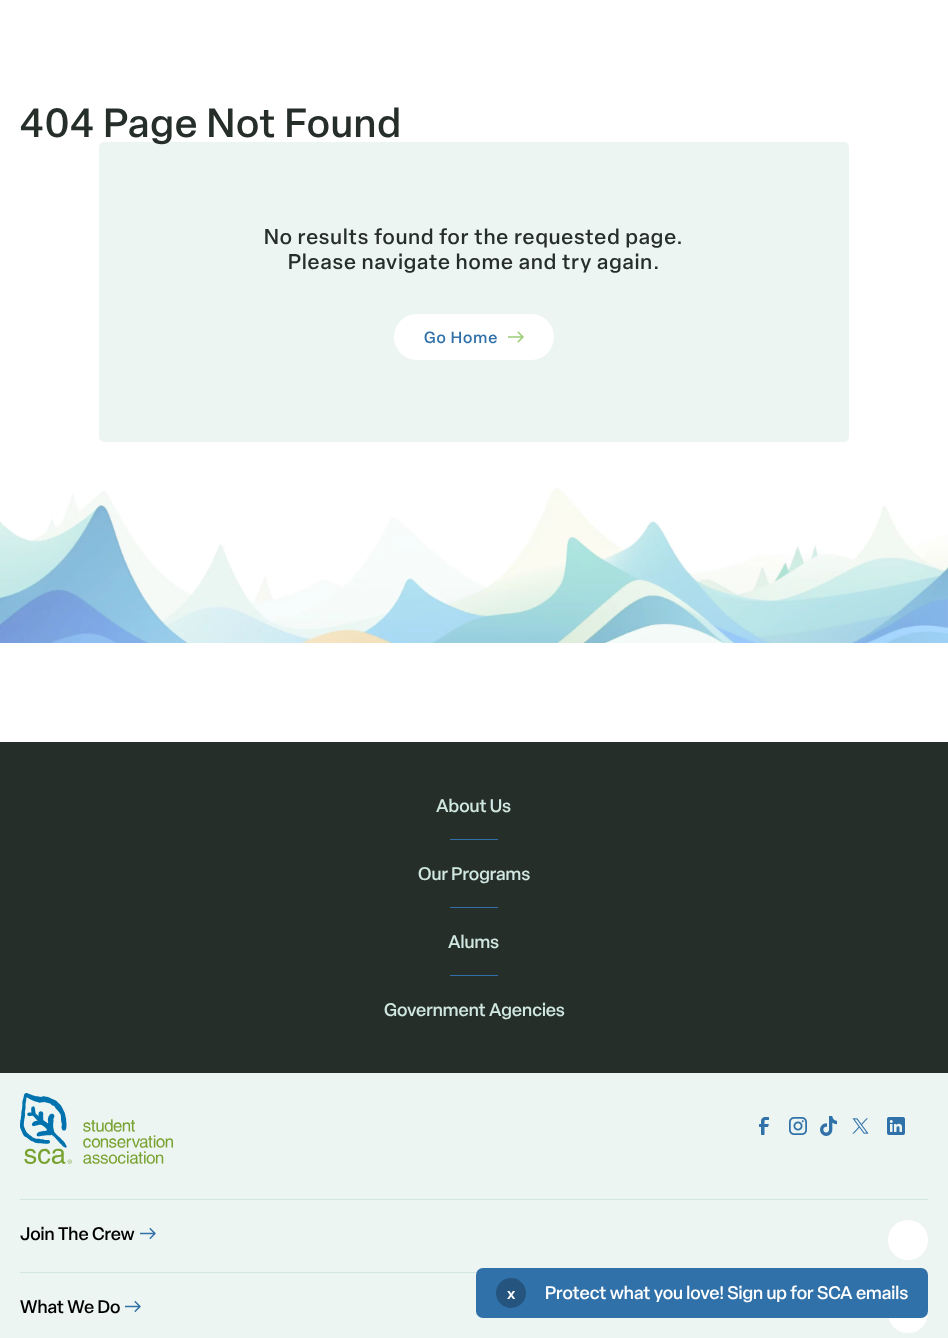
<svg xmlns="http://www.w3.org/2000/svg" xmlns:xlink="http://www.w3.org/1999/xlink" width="948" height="1338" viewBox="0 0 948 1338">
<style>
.cls-1{font:500 40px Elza;letter-spacing:1px;fill:#262e2a}
.cls-2{font:500 21px Elza;letter-spacing:1px;fill:#262e2a}
.cls-3{font:500 16px Elza;letter-spacing:1px;fill:#3171a9}
.cls-4{font:500 18px Elza;fill:#d1e8e2}
.cls-5{font:500 18px Elza;fill:#000000}
.cls-6{font:bold 15px Liberation Sans;fill:#ffffff}
.cls-7{font:500 18px Elza;fill:#ffffff}
</style>
<rect width="100%" height="100%" fill="#ffffff"/>
<rect fill="#edf5f3" x="99" y="142" width="750" height="300" rx="5"/>
<rect fill="#ffffff" x="394" y="314" width="160" height="46" rx="23"/>
<image xlink:href="image0.png" x="508" y="331" width="16" height="12"/>
<image xlink:href="image1.png" x="0" y="488" width="948" height="155"/>
<rect fill="#edf5f3" x="0" y="1073" width="948" height="265"/>
<rect fill="#262e2a" x="0" y="742" width="948" height="331"/>
<rect fill="#3171a9" x="450" y="839" width="48" height="1"/>
<rect fill="#3171a9" x="450" y="907" width="48" height="1"/>
<rect fill="#3171a9" x="450" y="975" width="48" height="1"/>
<rect fill="#d1e8e2" x="20" y="1199" width="908" height="1"/>
<image xlink:href="image2.png" x="20" y="1093" width="153" height="71"/>
<image xlink:href="image3.png" x="759" y="1117" width="10" height="18"/>
<image xlink:href="image4.png" x="789" y="1117" width="18" height="18"/>
<image xlink:href="image5.png" x="820" y="1116" width="17" height="20"/>
<image xlink:href="image6.png" x="852" y="1118" width="17" height="16"/>
<image xlink:href="image7.png" x="887" y="1117" width="18" height="18"/>
<rect fill="#d1e8e2" x="20" y="1272" width="908" height="1"/>
<image xlink:href="image8.png" x="140" y="1228" width="16" height="11"/>
<circle fill="#ffffff" cx="908" cy="1240" r="20"/>
<image xlink:href="image8.png" x="125" y="1301" width="16" height="11"/>
<circle fill="#ffffff" cx="908" cy="1313" r="20"/>
<rect fill="#3171a9" x="476" y="1268" width="452" height="50" rx="7"/>
<circle fill="#25557f" cx="511" cy="1293" r="15"/>
<text class="cls-1" x="20" y="137">404 Page Not Found</text>
<text class="cls-2" x="264" y="244">No results found for the requested page.</text>
<text class="cls-2" x="288" y="269">Please navigate home and try again.</text>
<text class="cls-3" x="424" y="343">Go Home</text>
<text class="cls-4" x="436" y="812">About Us</text>
<text class="cls-4" x="418" y="880">Our Programs</text>
<text class="cls-4" x="448" y="948">Alums</text>
<text class="cls-4" x="384" y="1016">Government Agencies</text>
<text class="cls-5" x="20" y="1240">Join The Crew</text>
<text class="cls-5" x="20" y="1313">What We Do</text>
<text class="cls-6" x="507" y="1299">x</text>
<text class="cls-7" x="545" y="1299">Protect what you love! Sign up for SCA emails</text>
</svg>
